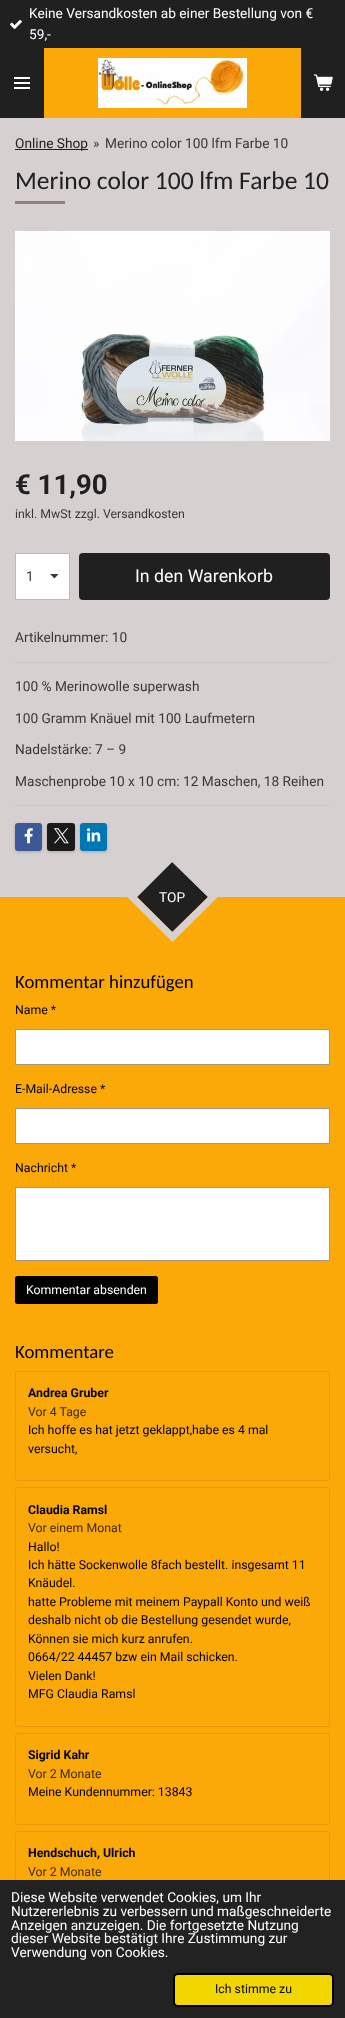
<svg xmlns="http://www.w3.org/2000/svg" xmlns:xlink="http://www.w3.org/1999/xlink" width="345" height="2018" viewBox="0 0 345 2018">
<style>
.cls-1{font:13.7px Roboto;fill:#ffffff}
.cls-2{font:13.7px Roboto;fill:#202020}
.cls-3{font:13.7px Roboto;fill:#3f3636}
.cls-4{font:25.5px Carlito;fill:#202020}
.cls-5{font:bold 27.5px Roboto;fill:#202020}
.cls-6{font:12.3px Roboto;fill:#3f3636}
.cls-7{font:17.75px Roboto;fill:#ffffff}
.cls-8{font:18.75px Carlito;fill:#000000}
.cls-9{font:12.3px Roboto;fill:#000000}
.cls-10{font:12.3px Roboto;fill:#ffffff}
.cls-11{font:bold 12.3px Roboto;fill:#000000}
.cls-12{font:12.3px Roboto;fill:#3f2a02}
</style>
<rect width="100%" height="100%" fill="#d7d0d0"/>
<rect fill="#202020" x="0" y="0" width="345" height="48"/>
<image xlink:href="image0.png" x="10" y="20" width="12" height="9"/>
<rect fill="#202020" x="0" y="48" width="44" height="70"/>
<rect fill="#ffffff" x="14" y="82" width="16" height="2"/>
<rect fill="#ffffff" x="14" y="77" width="16" height="2"/>
<rect fill="#ffffff" x="14" y="87" width="16" height="2"/>
<rect fill="#fba908" x="44" y="48" width="257" height="70"/>
<image xlink:href="image1.png" x="98" y="58" width="149" height="50"/>
<rect fill="#202020" x="301" y="48" width="44" height="70"/>
<image xlink:href="image2.png" x="314" y="74" width="19" height="17"/>
<rect fill="#202020" x="15" y="149" width="73" height="1"/>
<rect fill="#917d7d" x="15" y="201" width="50" height="3"/>
<image xlink:href="image3.png" x="15" y="231" width="315" height="210"/>
<rect fill="#ffffff" x="16" y="554" width="53" height="45"/>
<path fill="#3f3636" d="M54.5 578.5L50 574H58.5Z"/>
<rect fill="none" stroke="#c2b8b8" x="15.5" y="553.5" width="54" height="46"/>
<rect fill="#202020" x="79" y="553" width="251" height="47" rx="4"/>
<rect fill="#ccc5c5" x="15" y="662" width="315" height="1"/>
<rect fill="#ccc5c5" x="15" y="805" width="315" height="1"/>
<rect fill="#000000" fill-opacity="0.2" filter="blur(1.5px)" x="15" y="824" width="27" height="28" rx="3"/>
<rect fill="#3b5998" x="15" y="823" width="27" height="28" rx="3"/>
<image xlink:href="image4.png" x="24" y="828" width="9" height="16"/>
<rect fill="#000000" fill-opacity="0.2" filter="blur(1.5px)" x="47" y="824" width="28" height="28" rx="3"/>
<rect fill="#1a1a1a" x="47" y="823" width="28" height="28" rx="3"/>
<image xlink:href="image5.png" x="54" y="828" width="15" height="16"/>
<rect fill="#000000" fill-opacity="0.2" filter="blur(1.5px)" x="80" y="824" width="27" height="28" rx="3"/>
<rect fill="#0077b5" x="80" y="823" width="27" height="28" rx="3"/>
<image xlink:href="image6.png" x="87" y="828" width="14" height="14"/>
<rect fill="#fba908" x="0" y="897" width="345" height="983"/>
<path fill="#202020" d="M172 862L208 897L172 932L137 897Z"/>
<path fill="none" stroke="#d7d0d0" stroke-width="7" d="M172.5 856.5L213 897L172.5 937L132 897Z"/>
<rect fill="#ffffff" stroke="#a79a80" x="15.5" y="1029.5" width="314" height="35"/>
<rect fill="#ffffff" stroke="#a79a80" x="15.5" y="1108.5" width="314" height="35"/>
<rect fill="#ffffff" stroke="#a79a80" x="15.5" y="1187.5" width="314" height="73"/>
<rect fill="#000000" x="15" y="1276" width="143" height="28" rx="2.5"/>
<rect fill="none" stroke="#e79b07" x="15.5" y="1371.5" width="314" height="109" rx="2.5"/>
<rect fill="none" stroke="#e79b07" x="15.5" y="1487.5" width="314" height="239" rx="2.5"/>
<rect fill="none" stroke="#e79b07" x="15.5" y="1733.5" width="314" height="91" rx="2.5"/>
<rect fill="none" stroke="#e79b07" x="15.5" y="1831.5" width="314" height="128" rx="2.5"/>
<rect fill="#222222" x="0" y="1880" width="345" height="138"/>
<rect fill="#f1d600" stroke="#000000" stroke-width="2" x="174" y="1974" width="159" height="32" rx="4"/>
<text class="cls-1"><tspan x="29" y="18">Keine Versandkosten ab einer Bestellung von €</tspan><tspan x="29" y="39">59,-</tspan></text>
<text class="cls-2" x="15" y="148">Online Shop</text>
<text class="cls-3" x="93" y="148">»</text>
<text class="cls-3" x="105" y="148">Merino color 100 lfm Farbe 10</text>
<text class="cls-4" x="15" y="189">Merino color 100 lfm Farbe 10</text>
<text class="cls-5" x="15" y="494">€ 11,90</text>
<text class="cls-6" x="15" y="518">inkl. MwSt zzgl. Versandkosten</text>
<text class="cls-3" x="26" y="581">1</text>
<text class="cls-7" x="135" y="582">In den Warenkorb</text>
<text class="cls-3" x="15" y="642">Artikelnummer: 10</text>
<text class="cls-3" x="15" y="691">100 % Merinowolle superwash</text>
<text class="cls-3" x="15" y="723">100 Gramm Knäuel mit 100 Laufmetern</text>
<text class="cls-3" x="15" y="754">Nadelstärke: 7 – 9</text>
<text class="cls-3" x="15" y="786">Maschenprobe 10 x 10 cm: 12 Maschen, 18 Reihen</text>
<text class="cls-1" x="159" y="902">TOP</text>
<text class="cls-8" x="15" y="988">Kommentar hinzufügen</text>
<text class="cls-9" x="15" y="1014">Name *</text>
<text class="cls-9" x="15" y="1093">E-Mail-Adresse *</text>
<text class="cls-9" x="15" y="1172">Nachricht *</text>
<text class="cls-10" x="26" y="1294">Kommentar absenden</text>
<text class="cls-8" x="15" y="1358">Kommentare</text>
<text class="cls-11" x="28" y="1397">Andrea Gruber</text>
<text class="cls-12" x="28" y="1416">Vor 4 Tage</text>
<text class="cls-9"><tspan x="28" y="1434">Ich hoffe es hat jetzt geklappt,habe es 4 mal</tspan><tspan x="28" y="1453">versucht,</tspan></text>
<text class="cls-11" x="28" y="1514">Claudia Ramsl</text>
<text class="cls-12" x="28" y="1532">Vor einem Monat</text>
<text class="cls-9"><tspan x="28" y="1551">Hallo!</tspan><tspan x="28" y="1569">Ich hätte Sockenwolle 8fach bestellt. insgesamt 11</tspan><tspan x="28" y="1587">Knäudel.</tspan><tspan x="28" y="1606">hatte Probleme mit meinem Paypall Konto und weiß</tspan><tspan x="28" y="1624">deshalb nicht ob die Bestellung gesendet wurde,</tspan><tspan x="28" y="1643">Können sie mich kurz anrufen.</tspan><tspan x="28" y="1661">0664/22 44457 bzw ein Mail schicken.</tspan><tspan x="28" y="1680">Vielen Dank!</tspan><tspan x="28" y="1698">MFG Claudia Ramsl</tspan></text>
<text class="cls-11" x="28" y="1759">Sigrid Kahr</text>
<text class="cls-12" x="28" y="1778">Vor 2 Monate</text>
<text class="cls-9" x="28" y="1796">Meine Kundennummer: 13843</text>
<text class="cls-11" x="28" y="1857">Hendschuch, Ulrich</text>
<text class="cls-12" x="28" y="1876">Vor 2 Monate</text>
<text class="cls-1"><tspan x="11" y="1902">Diese Website verwendet Cookies, um Ihr</tspan><tspan x="11" y="1916">Nutzererlebnis zu verbessern und maßgeschneiderte</tspan><tspan x="11" y="1930">Anzeigen anzuzeigen. Die fortgesetzte Nutzung</tspan><tspan x="11" y="1943">dieser Website bestätigt Ihre Zustimmung zur</tspan><tspan x="11" y="1957">Verwendung von Cookies.</tspan></text>
<text class="cls-9" x="215" y="1993">Ich stimme zu</text>
</svg>
